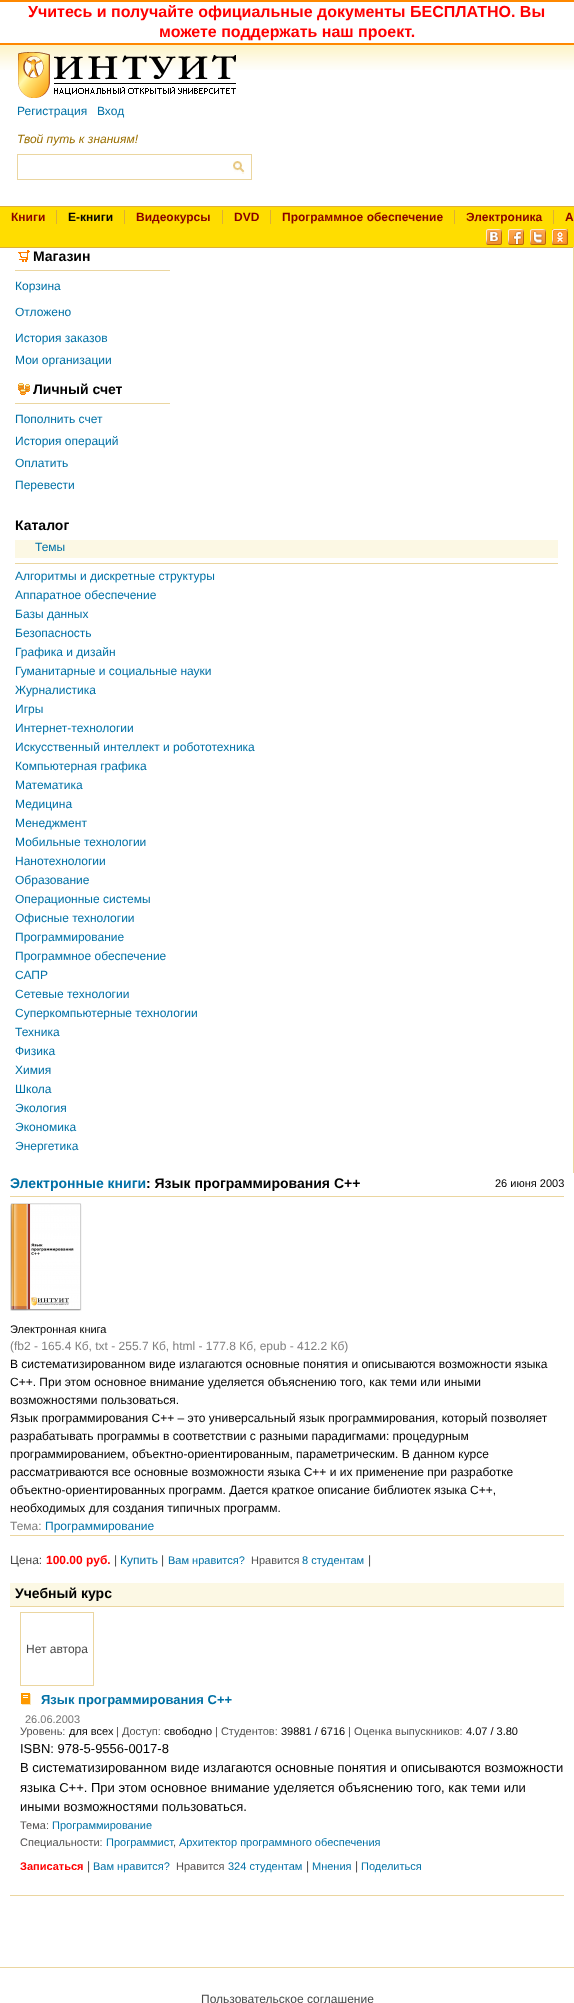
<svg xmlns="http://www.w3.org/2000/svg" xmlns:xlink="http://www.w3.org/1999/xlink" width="574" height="2003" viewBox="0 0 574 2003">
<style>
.cls-1{font:bold 16px Liberation Sans;fill:#ff0000}
.cls-2{font:12px Liberation Sans;fill:#0071a6}
.cls-3{font:italic 12px Liberation Sans;fill:#9a6f00}
.cls-4{font:bold 12px Liberation Sans;fill:#880000}
.cls-5{font:bold 12px Liberation Sans;fill:#000000}
.cls-6{font:bold 14px Liberation Sans;fill:#000000}
.cls-7{font:bold 14px Liberation Sans;fill:#0071a6}
.cls-8{font:11px Liberation Sans;fill:#000000}
.cls-9{font:12px Liberation Sans;fill:#808080}
.cls-10{font:12px Liberation Sans;fill:#000000}
.cls-11{font:12px Liberation Sans;fill:#494949}
.cls-12{font:bold 12px Liberation Sans;fill:#ff0000}
.cls-13{font:11px Liberation Sans;fill:#0071a6}
.cls-14{font:11px Liberation Sans;fill:#515050}
.cls-15{font:bold 13px Liberation Sans;fill:#0071a6}
.cls-16{font:11px Liberation Sans;fill:#777777}
.cls-17{font:13px Liberation Sans;fill:#000000}
.cls-18{font:bold 11px Liberation Sans;fill:#ff0000}
</style>
<rect width="100%" height="100%" fill="#ffffff"/>
<rect fill="#ff8800" x="0" y="0" width="574" height="2"/>
<rect fill="#ff8800" x="0" y="43" width="574" height="2"/>
<image xlink:href="image0.png" x="0" y="45" width="574" height="25"/>
<image xlink:href="image1.png" x="18" y="52" width="218" height="46"/>
<rect fill="none" stroke="#ebd6a0" x="17.5" y="154.5" width="234" height="25"/>
<image xlink:href="image2.png" x="233" y="161" width="12" height="13"/>
<rect fill="#dcaf38" x="0" y="206" width="574" height="1"/>
<rect fill="#ffdd00" x="0" y="207" width="574" height="40"/>
<rect fill="#dcaf38" x="0" y="247" width="574" height="1"/>
<rect fill="#dcaf38" x="56" y="210" width="1" height="14"/>
<rect fill="#dcaf38" x="124" y="210" width="1" height="14"/>
<rect fill="#dcaf38" x="222" y="210" width="1" height="14"/>
<rect fill="#dcaf38" x="270" y="210" width="1" height="14"/>
<rect fill="#dcaf38" x="454" y="210" width="1" height="14"/>
<rect fill="#dcaf38" x="553" y="210" width="1" height="14"/>
<image xlink:href="image3.png" x="486" y="229" width="16" height="16"/>
<image xlink:href="image4.png" x="508" y="229" width="16" height="16"/>
<image xlink:href="image5.png" x="530" y="229" width="16" height="16"/>
<image xlink:href="image6.png" x="552" y="229" width="16" height="16"/>
<rect fill="#ebd6a0" x="573" y="247" width="1" height="926"/>
<rect fill="#ebd6a0" x="15" y="270" width="155" height="1"/>
<image xlink:href="image7.png" x="18" y="250" width="12" height="12"/>
<rect fill="#ebd6a0" x="15" y="403" width="155" height="1"/>
<image xlink:href="image8.png" x="18" y="383" width="12" height="12"/>
<rect fill="#ebd6a0" x="15" y="563" width="543" height="1"/>
<rect fill="#fcf8e4" x="15" y="540" width="543" height="18"/>
<rect fill="#ebd6a0" x="10" y="1196" width="554" height="1"/>
<image xlink:href="image9.png" x="10" y="1203" width="72" height="108"/>
<rect fill="#ebd6a0" x="10" y="1535" width="554" height="1"/>
<rect fill="#fcf8e4" x="10" y="1583" width="554" height="23"/>
<rect fill="#ebd6a0" x="10" y="1606" width="554" height="1"/>
<rect fill="#ebd6a0" x="10" y="1895" width="554" height="1"/>
<rect fill="none" stroke="#ebd6a0" x="20.5" y="1612.5" width="73" height="73"/>
<image xlink:href="image10.png" x="21" y="1693" width="10" height="12"/>
<rect fill="#ebd6a0" x="0" y="1967" width="574" height="1"/>
<text class="cls-1" x="28" y="17">Учитесь и получайте официальные документы БЕСПЛАТНО. Вы</text>
<text class="cls-1" x="159" y="37">можете поддержать наш проект.</text>
<text class="cls-2" x="17" y="115">Регистрация</text>
<text class="cls-2" x="97" y="115">Вход</text>
<text class="cls-3" x="17" y="143">Твой путь к знаниям!</text>
<text class="cls-4" x="11" y="221">Книги</text>
<text class="cls-5" x="68" y="221">E-книги</text>
<text class="cls-4" x="136" y="221">Видеокурсы</text>
<text class="cls-4" x="234" y="221">DVD</text>
<text class="cls-4" x="282" y="221">Программное обеспечение</text>
<text class="cls-4" x="466" y="221">Электроника</text>
<text class="cls-4" x="565" y="221">А</text>
<text class="cls-6" x="33" y="261">Магазин</text>
<text class="cls-2" x="15" y="290">Корзина</text>
<text class="cls-2" x="15" y="316">Отложено</text>
<text class="cls-2"><tspan x="15" y="342">История заказов</tspan><tspan x="15" y="364">Мои организации</tspan></text>
<text class="cls-6" x="33" y="394">Личный счет</text>
<text class="cls-2"><tspan x="15" y="423">Пополнить счет</tspan><tspan x="15" y="445">История операций</tspan><tspan x="15" y="467">Оплатить</tspan><tspan x="15" y="489">Перевести</tspan></text>
<text class="cls-6" x="15" y="530">Каталог</text>
<text class="cls-2" x="35" y="551">Темы</text>
<text class="cls-2"><tspan x="15" y="580">Алгоритмы и дискретные структуры</tspan><tspan x="15" y="599">Аппаратное обеспечение</tspan><tspan x="15" y="618">Базы данных</tspan><tspan x="15" y="637">Безопасность</tspan><tspan x="15" y="656">Графика и дизайн</tspan><tspan x="15" y="675">Гуманитарные и социальные науки</tspan><tspan x="15" y="694">Журналистика</tspan><tspan x="15" y="713">Игры</tspan><tspan x="15" y="732">Интернет-технологии</tspan><tspan x="15" y="751">Искусственный интеллект и робототехника</tspan><tspan x="15" y="770">Компьютерная графика</tspan><tspan x="15" y="789">Математика</tspan><tspan x="15" y="808">Медицина</tspan><tspan x="15" y="827">Менеджмент</tspan><tspan x="15" y="846">Мобильные технологии</tspan><tspan x="15" y="865">Нанотехнологии</tspan><tspan x="15" y="884">Образование</tspan><tspan x="15" y="903">Операционные системы</tspan><tspan x="15" y="922">Офисные технологии</tspan><tspan x="15" y="941">Программирование</tspan><tspan x="15" y="960">Программное обеспечение</tspan><tspan x="15" y="979">САПР</tspan><tspan x="15" y="998">Сетевые технологии</tspan><tspan x="15" y="1017">Суперкомпьютерные технологии</tspan><tspan x="15" y="1036">Техника</tspan><tspan x="15" y="1055">Физика</tspan><tspan x="15" y="1074">Химия</tspan><tspan x="15" y="1093">Школа</tspan><tspan x="15" y="1112">Экология</tspan><tspan x="15" y="1131">Экономика</tspan><tspan x="15" y="1150">Энергетика</tspan></text>
<text class="cls-7" x="10" y="1188">Электронные книги</text>
<text class="cls-6" x="146" y="1188">: Язык программирования C++</text>
<text class="cls-8" x="495" y="1187">26 июня 2003</text>
<text class="cls-8" x="10" y="1333">Электронная книга</text>
<text class="cls-9" x="10" y="1350">(fb2 - 165.4 Кб, txt - 255.7 Кб, html - 177.8 Кб, epub - 412.2 Кб)</text>
<text class="cls-10"><tspan x="10" y="1368">В систематизированном виде излагаются основные понятия и описываются возможности языка</tspan><tspan x="10" y="1386">C++. При этом основное внимание уделяется объяснению того, как теми или иными</tspan><tspan x="10" y="1404">возможностями пользоваться.</tspan><tspan x="10" y="1422">Язык программирования C++ – это универсальный язык программирования, который позволяет</tspan><tspan x="10" y="1440">разрабатывать программы в соответствии с разными парадигмами: процедурным</tspan><tspan x="10" y="1458">программированием, объектно-ориентированным, параметрическим. В данном курсе</tspan><tspan x="10" y="1476">рассматриваются все основные возможности языка C++ и их применение при разработке</tspan><tspan x="10" y="1494">объектно-ориентированных программ. Дается краткое описание библиотек языка C++,</tspan><tspan x="10" y="1512">необходимых для создания типичных программ.</tspan></text>
<text class="cls-9" x="10" y="1530">Тема:</text>
<text class="cls-2" x="45" y="1530">Программирование</text>
<text class="cls-11" x="10" y="1564">Цена:</text>
<text class="cls-12" x="46" y="1564">100.00 руб.</text>
<text class="cls-11" x="114" y="1564">|</text>
<text class="cls-2" x="120" y="1564">Купить</text>
<text class="cls-11" x="161" y="1564">|</text>
<text class="cls-13" x="168" y="1564">Вам нравится?</text>
<text class="cls-14" x="251" y="1564">Нравится</text>
<text class="cls-13" x="302" y="1564">8 студентам</text>
<text class="cls-11" x="368" y="1564">|</text>
<text class="cls-6" x="15" y="1598">Учебный курс</text>
<text class="cls-11" x="26" y="1653">Нет автора</text>
<text class="cls-15" x="41" y="1704">Язык программирования C++</text>
<text class="cls-16" x="25" y="1723">26.06.2003</text>
<text class="cls-14" x="20" y="1735">Уровень:</text>
<text class="cls-8" x="69" y="1735">для всех</text>
<text class="cls-14" x="116" y="1735">| Доступ:</text>
<text class="cls-8" x="164" y="1735">свободно</text>
<text class="cls-14" x="215" y="1735">| Студентов:</text>
<text class="cls-8" x="281" y="1735">39881 / 6716</text>
<text class="cls-14" x="348" y="1735">| Оценка выпускников:</text>
<text class="cls-8" x="466" y="1735">4.07 / 3.80</text>
<text class="cls-17"><tspan x="20" y="1753">ISBN: 978-5-9556-0017-8</tspan><tspan x="20" y="1772">В систематизированном виде излагаются основные понятия и описываются возможности</tspan><tspan x="20" y="1792">языка C++. При этом основное внимание уделяется объяснению того, как теми или</tspan><tspan x="20" y="1811">иными возможностями пользоваться.</tspan></text>
<text class="cls-14" x="20" y="1829">Тема:</text>
<text class="cls-13" x="52" y="1829">Программирование</text>
<text class="cls-14" x="20" y="1846">Специальности:</text>
<text class="cls-13" x="106" y="1846">Программист</text>
<text class="cls-13" x="179" y="1846">Архитектор программного обеспечения</text>
<text class="cls-14" x="173" y="1846">,</text>
<text class="cls-18" x="20" y="1870">Записаться</text>
<text class="cls-11" x="87" y="1870">|</text>
<text class="cls-13" x="93" y="1870">Вам нравится?</text>
<text class="cls-14" x="176" y="1870">Нравится</text>
<text class="cls-13" x="228" y="1870">324 студентам</text>
<text class="cls-11" x="306" y="1870">|</text>
<text class="cls-13" x="312" y="1870">Мнения</text>
<text class="cls-11" x="355" y="1870">|</text>
<text class="cls-13" x="361" y="1870">Поделиться</text>
<text class="cls-11" x="201" y="2003">Пользовательское соглашение</text>
</svg>
